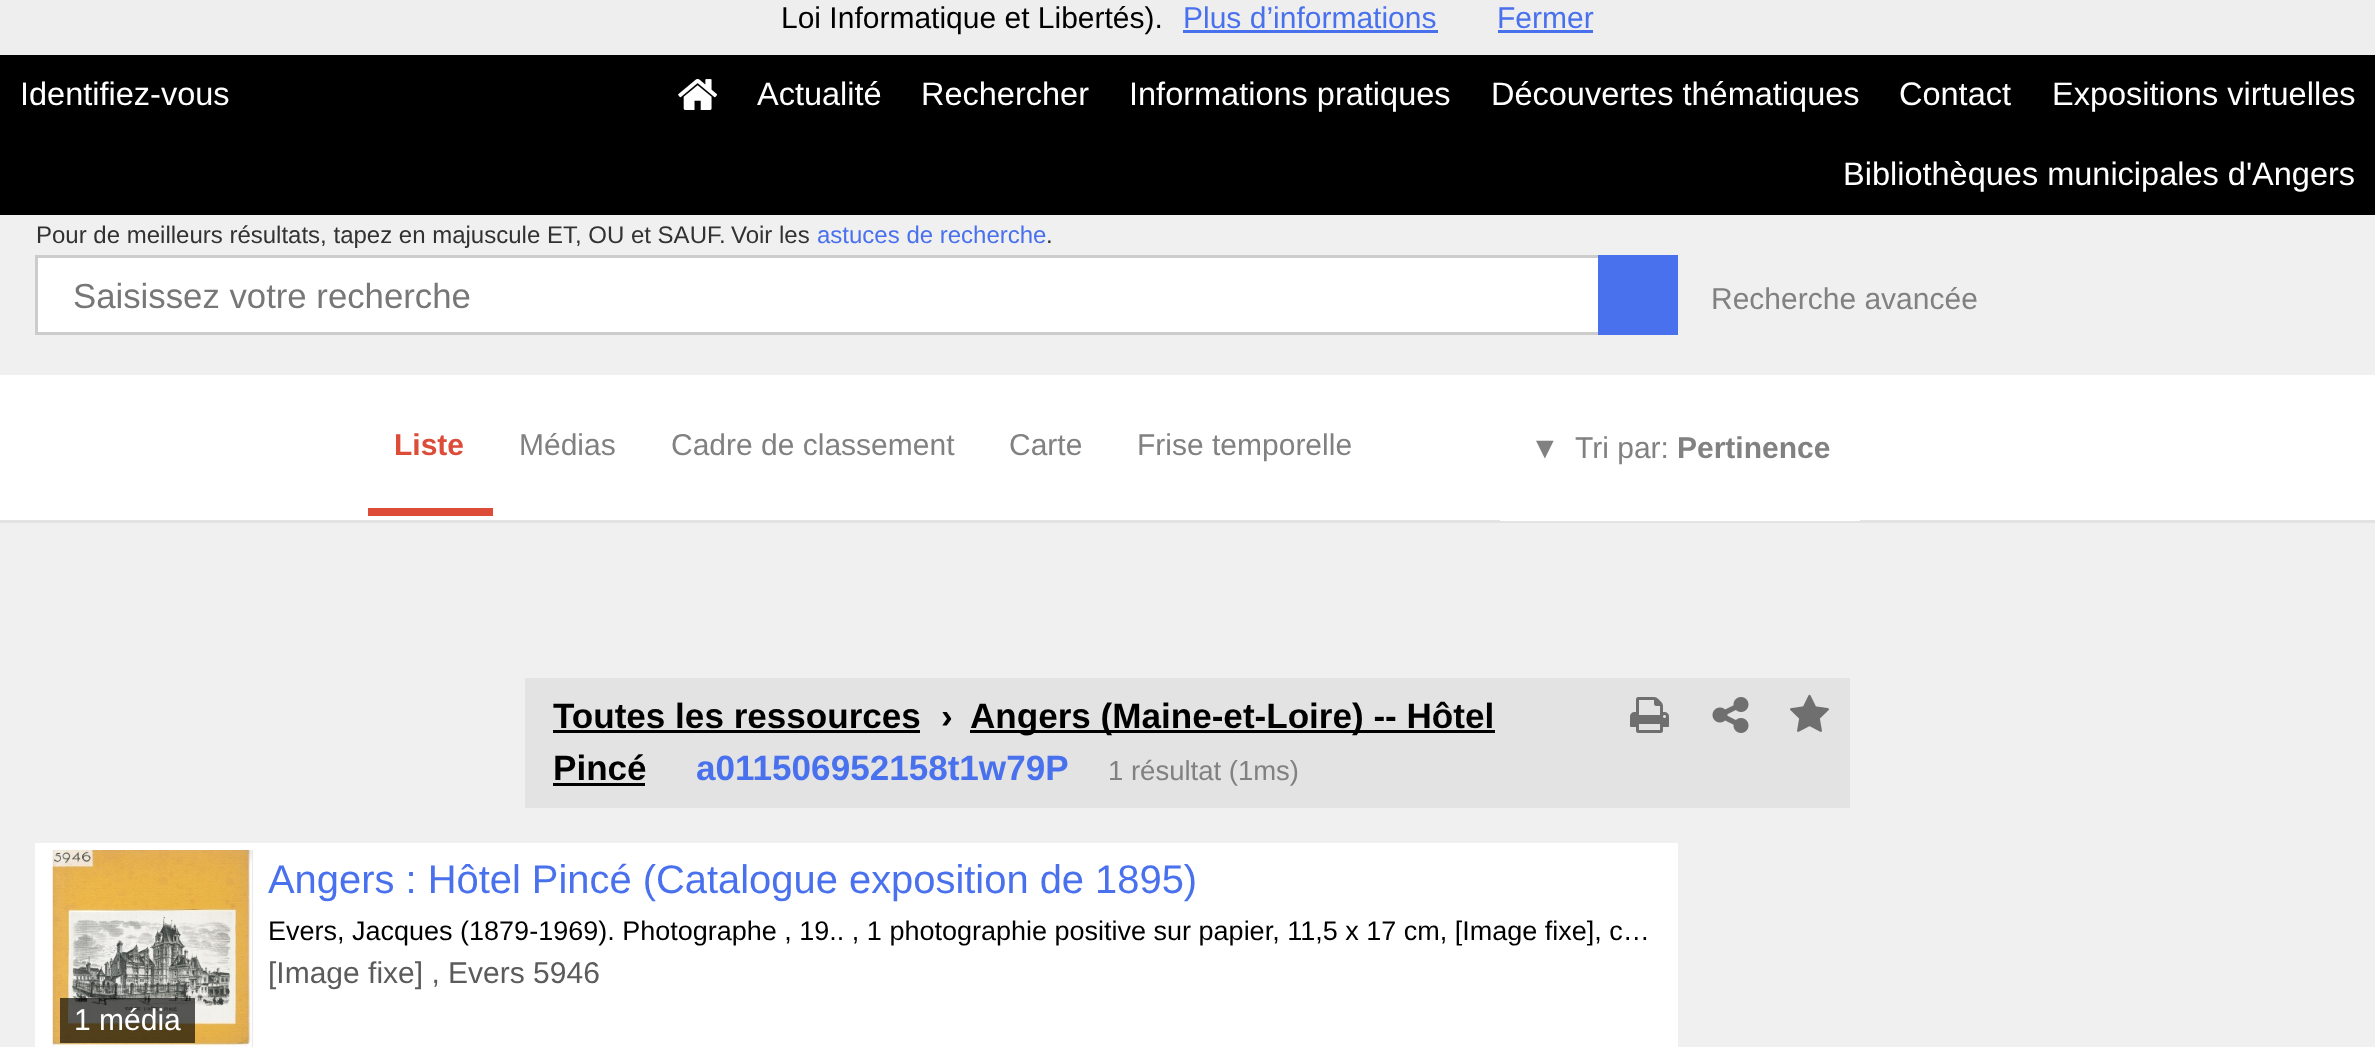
<svg xmlns="http://www.w3.org/2000/svg" xmlns:xlink="http://www.w3.org/1999/xlink" width="2375" height="1047" viewBox="0 0 2375 1047">
<style>
.cls-1{font:30px Liberation Sans;fill:#000000}
.cls-2{font:30px Liberation Sans;fill:#4a71ed}
.cls-3{font:32.5px Liberation Sans;fill:#ffffff}
.cls-4{font:24px Liberation Sans;fill:#323232}
.cls-5{font:24px Liberation Sans;fill:#4a71ed}
.cls-6{font:34.75px Liberation Sans;fill:#777777}
.cls-7{font:30px Liberation Sans;fill:#818181}
.cls-8{font:bold 30px Liberation Sans;fill:#dd4b39}
.cls-9{font:bold 30px Liberation Sans;fill:#818181}
.cls-10{font:bold 35.1px Liberation Sans;fill:#000000}
.cls-11{font:bold 35.1px Liberation Sans;fill:#4a71ed}
.cls-12{font:27.5px Liberation Sans;fill:#818181}
.cls-13{font:39.9px Liberation Sans;fill:#4a71ed}
.cls-14{font:27px Liberation Sans;fill:#000000}
.cls-15{font:30px Liberation Sans;fill:#5b5b5b}
.cls-16{font:30px Liberation Sans;fill:#ffffff}
</style>
<rect width="100%" height="100%" fill="#ffffff"/>
<rect fill="#eeeeee" x="0" y="0" width="2375" height="55"/>
<rect fill="#4970ec" x="1183" y="30" width="255" height="3"/>
<rect fill="#4970ec" x="1498" y="30" width="95" height="3"/>
<rect fill="#000000" x="0" y="55" width="2375" height="160"/>
<image xlink:href="image0.png" x="678" y="79" width="40" height="31"/>
<rect fill="#f0f0f0" x="0" y="215" width="2375" height="160"/>
<rect fill="#ffffff" x="38" y="258" width="1560" height="74"/>
<rect fill="none" stroke="#cccccc" stroke-width="3" x="36.5" y="256.5" width="1640" height="77"/>
<rect fill="#4a71ed" x="1598" y="255" width="80" height="80"/>
<rect fill="#e3e3e3" x="0" y="520" width="2375" height="3"/>
<rect fill="#dd4b39" x="368" y="508" width="125" height="8"/>
<rect fill="#ffffff" x="1500" y="520" width="360" height="1"/>
<rect fill="#f0f0f0" x="0" y="523" width="2375" height="524"/>
<rect fill="#e3e3e3" x="525" y="678" width="1325" height="130"/>
<rect fill="#000000" x="553" y="730" width="367" height="3"/>
<rect fill="#000000" x="970" y="730" width="525" height="3"/>
<rect fill="#000000" x="553" y="783" width="92" height="3"/>
<image xlink:href="image1.png" x="1630" y="697" width="39" height="36"/>
<image xlink:href="image2.png" x="1712" y="697" width="37" height="36"/>
<image xlink:href="image3.png" x="1790" y="694" width="39" height="38"/>
<rect fill="#ffffff" x="35" y="843" width="1643" height="204"/>
<rect fill="#e3e3e3" x="252" y="850" width="1" height="197"/>
<image xlink:href="image4.png" x="52" y="850" width="201" height="197"/>
<rect fill="#000000" fill-opacity="0.65" x="60" y="998" width="135" height="45"/>
<text class="cls-1" x="781" y="28">Loi Informatique et Libertés).</text>
<text class="cls-2" x="1183" y="28">Plus d’informations</text>
<text class="cls-2" x="1497" y="28">Fermer</text>
<text class="cls-3" x="20" y="105">Identifiez-vous</text>
<text class="cls-3" x="757" y="105">Actualité</text>
<text class="cls-3" x="921" y="105">Rechercher</text>
<text class="cls-3" x="1129" y="105">Informations pratiques</text>
<text class="cls-3" x="1491" y="105">Découvertes thématiques</text>
<text class="cls-3" x="1899" y="105">Contact</text>
<text class="cls-3" x="2052" y="105">Expositions virtuelles</text>
<text class="cls-3" x="1843" y="185">Bibliothèques municipales d'Angers</text>
<text class="cls-4" x="36" y="243">Pour de meilleurs résultats, tapez en majuscule ET, OU et SAUF.</text>
<text class="cls-4" x="731" y="243">Voir les</text>
<text class="cls-5" x="817" y="243">astuces de recherche</text>
<text class="cls-4" x="1046" y="243">.</text>
<text class="cls-6" x="73" y="308">Saisissez votre recherche</text>
<text class="cls-7" x="1711" y="309">Recherche avancée</text>
<text class="cls-8" x="394" y="455">Liste</text>
<text class="cls-7" x="519" y="455">Médias</text>
<text class="cls-7" x="671" y="455">Cadre de classement</text>
<text class="cls-7" x="1009" y="455">Carte</text>
<text class="cls-7" x="1137" y="455">Frise temporelle</text>
<text class="cls-7" x="1530" y="458">▼</text>
<text class="cls-7" x="1575" y="458">Tri par:</text>
<text class="cls-9" x="1677" y="458">Pertinence</text>
<text class="cls-10" x="553" y="728">Toutes les ressources</text>
<text class="cls-10" x="941" y="728">›</text>
<text class="cls-10" x="970" y="728">Angers (Maine-et-Loire) -- Hôtel</text>
<text class="cls-10" x="553" y="780">Pincé</text>
<text class="cls-11" x="696" y="780">a011506952158t1w79P</text>
<text class="cls-12" x="1108" y="780">1 résultat (1ms)</text>
<text class="cls-13" x="268" y="893">Angers : Hôtel Pincé (Catalogue exposition de 1895)</text>
<text class="cls-14" x="268" y="940">Evers, Jacques (1879-1969). Photographe , 19.. , 1 photographie positive sur papier, 11,5 x 17 cm, [Image fixe], c…</text>
<text class="cls-15" x="268" y="983">[Image fixe] , Evers 5946</text>
<text class="cls-16" x="74" y="1030">1 média</text>
</svg>
